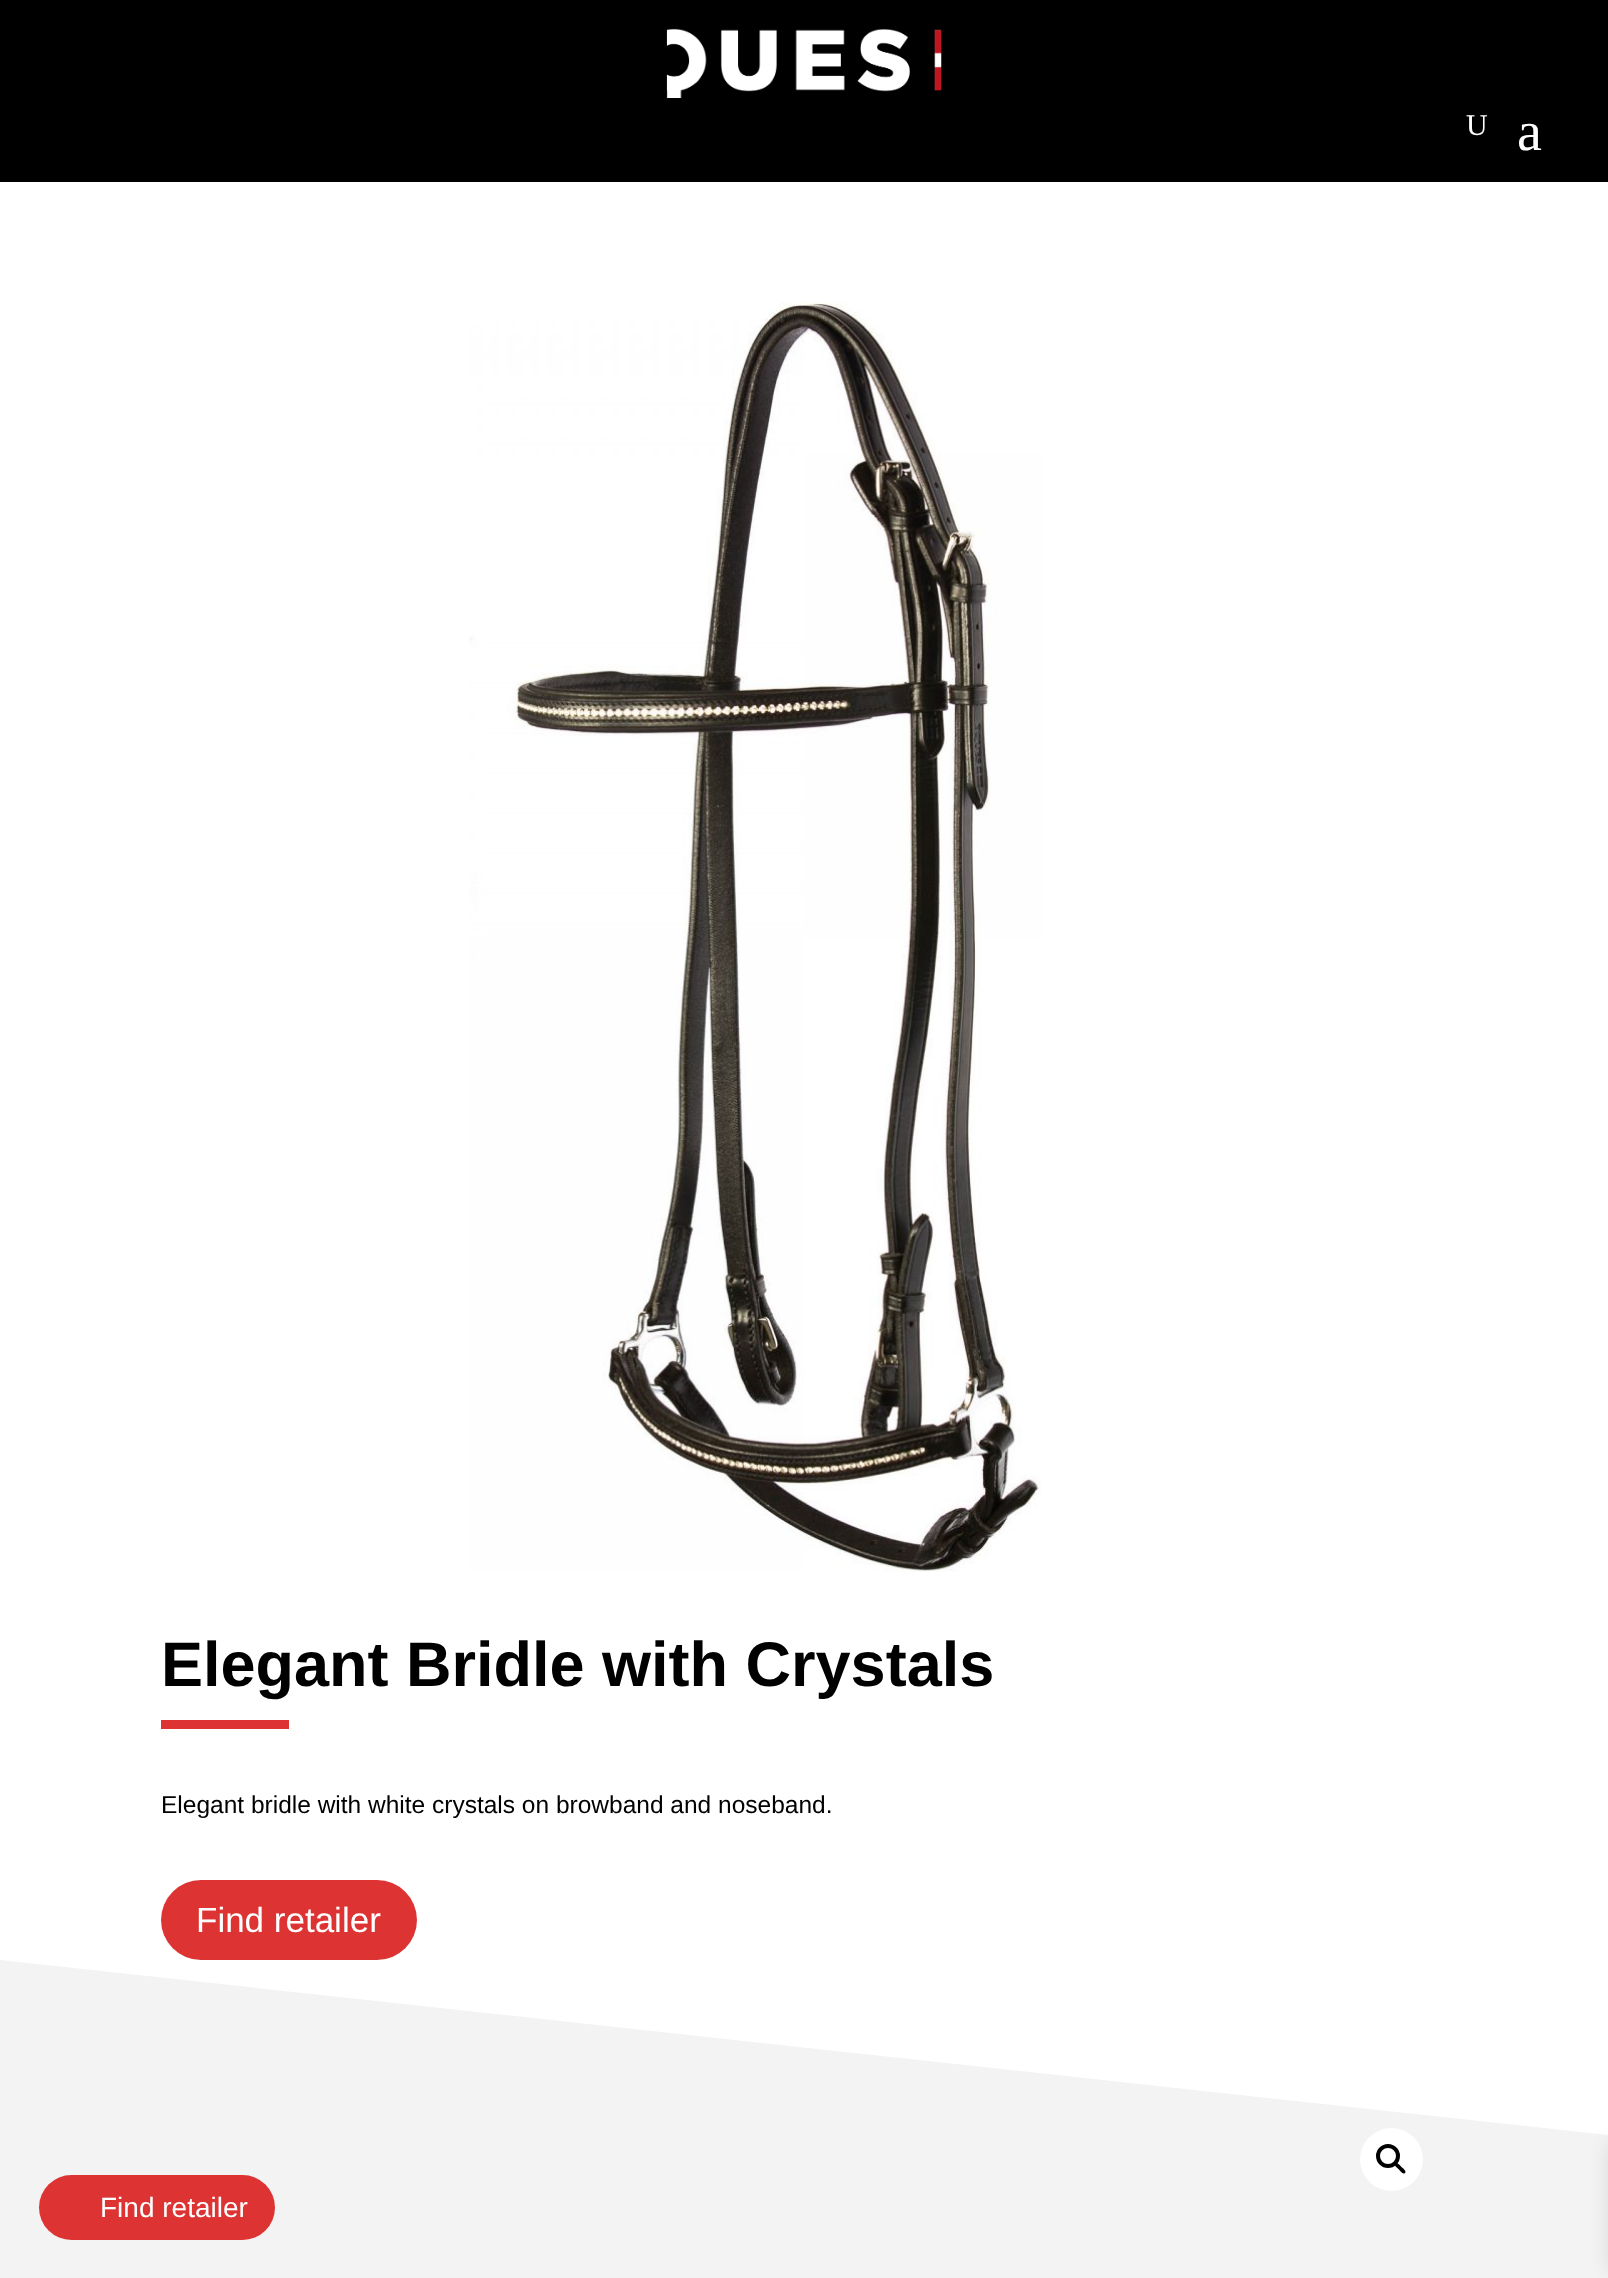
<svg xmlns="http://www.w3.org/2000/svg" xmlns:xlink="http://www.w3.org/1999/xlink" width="1608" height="2278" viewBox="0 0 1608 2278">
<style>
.cls-1{font:30px Liberation Serif;fill:#ffffff}
.cls-2{font:56px Liberation Serif;fill:#ffffff}
.cls-3{font:28px Liberation Sans;fill:#ffffff}
.cls-4{font:bold 63px Liberation Sans;fill:#000000}
.cls-5{font:24.5px Liberation Sans;fill:#000000}
.cls-6{font:35px Liberation Sans;fill:#ffffff}
</style>
<rect width="100%" height="100%" fill="#ffffff"/>
<rect fill="#000000" x="0" y="0" width="1608" height="182"/>
<image xlink:href="image0.png" x="666" y="28" width="276" height="70"/>
<path fill="#f3f3f3" d="M0 1960V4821H1608V2135Z"/>
<rect fill="#dd3333" x="39" y="2175" width="236" height="65" rx="32.5"/>
<image xlink:href="image1.png" x="469" y="302" width="573" height="1270"/>
<rect fill="#dd3333" x="161" y="1720" width="128" height="9"/>
<rect fill="#dd3333" x="161" y="1880" width="256" height="80" rx="40"/>
<circle fill="#ffffff" cx="1391.5" cy="2159.5" r="31.5"/>
<circle fill="none" stroke="#000000" stroke-width="4" cx="1388" cy="2156" r="10"/>
<path fill="#000000" d="M1395 2163C1397 2161.5 1400.5 2166 1401.5 2167C1402.5 2168 1407 2171 1405 2173C1403 2175 1400 2170.5 1399 2169.5C1398 2168.5 1393 2165 1395 2163Z"/>
<rect fill="#000000" fill-opacity="0.1" filter="blur(9px)" x="1608" y="2142" width="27" height="128"/>
<text class="cls-1" x="1466" y="135">U</text>
<text class="cls-2" x="1517" y="150">a</text>
<text class="cls-3" x="100" y="2217">Find retailer</text>
<text class="cls-4" x="161" y="1686">Elegant Bridle with Crystals</text>
<text class="cls-5" x="161" y="1813">Elegant bridle with white crystals on browband and noseband.</text>
<text class="cls-6" x="196" y="1932">Find retailer</text>
</svg>
